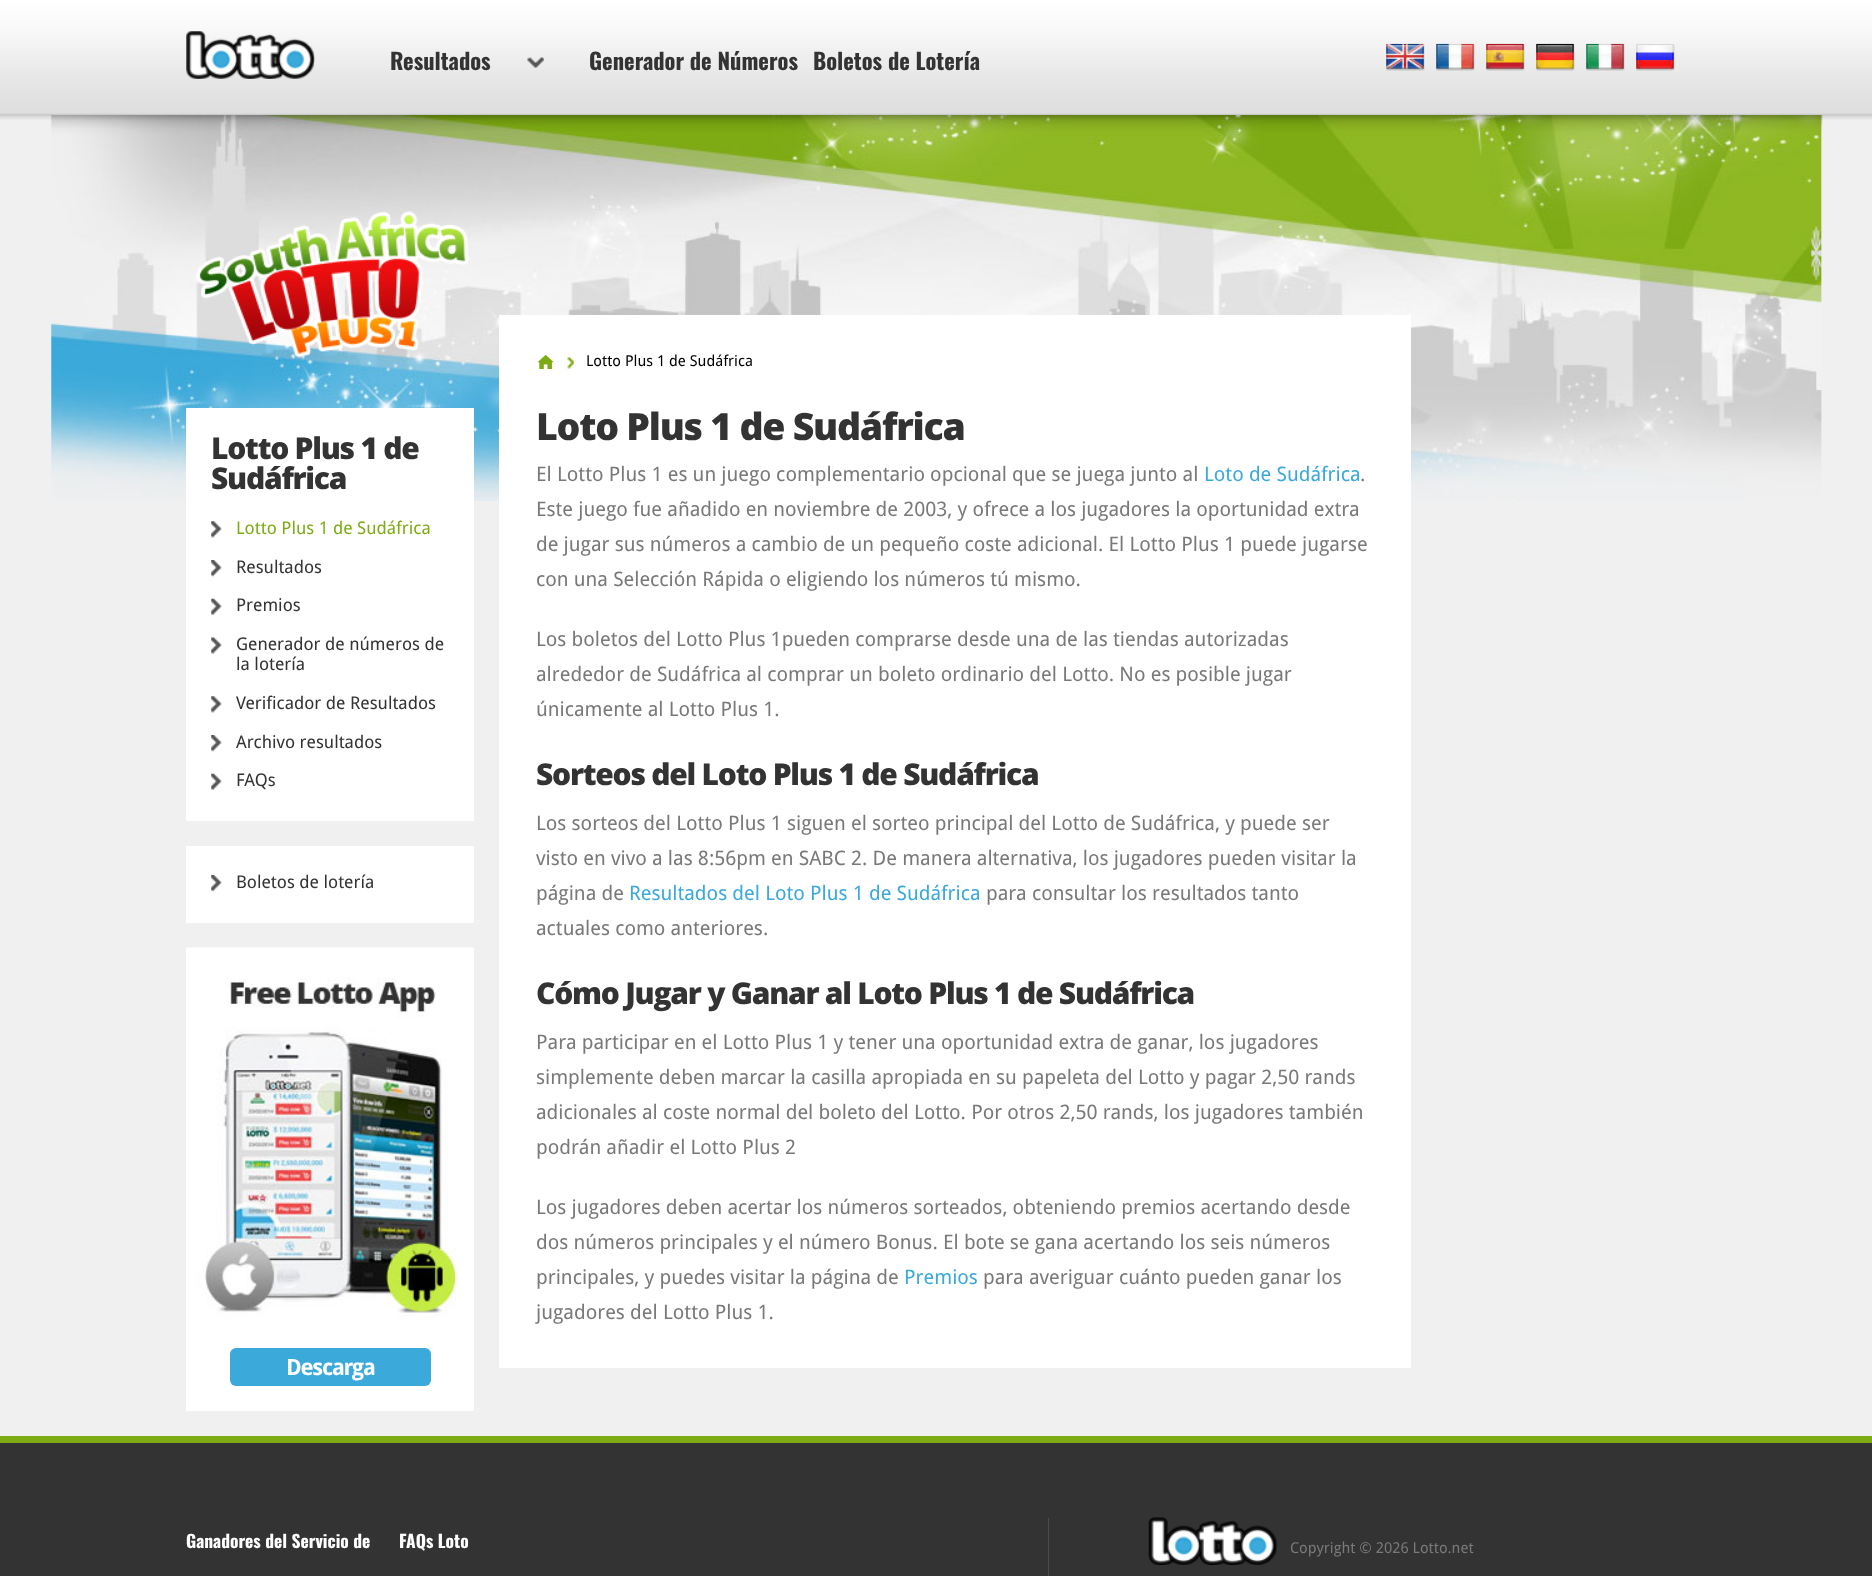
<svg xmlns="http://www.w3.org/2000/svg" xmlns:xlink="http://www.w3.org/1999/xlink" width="1872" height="1576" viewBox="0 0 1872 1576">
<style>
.cls-1{font:bold 22.5px Oswald;fill:#333333}
.cls-2{font:800 30px Open Sans;letter-spacing:-1.25px;fill:#333333}
.cls-3{font:17.5px Droid Sans;fill:#7eab14}
.cls-4{font:17.5px Droid Sans;fill:#333333}
.cls-5{font:bold 22.5px Droid Sans;letter-spacing:-1.25px;fill:#ffffff}
.cls-6{font:15px Droid Sans;fill:#000000}
.cls-7{font:800 37.5px Open Sans;letter-spacing:-1.25px;fill:#333333}
.cls-8{font:20px Droid Sans;fill:#797979}
.cls-9{font:20px Droid Sans;fill:#3ba9da}
.cls-10{font:bold 17.5px Oswald;fill:#ffffff}
.cls-11{font:15px Droid Sans;fill:#797979}
</style>
<rect width="100%" height="100%" fill="#f0f0f0"/>
<image xlink:href="image0.png" x="51" y="115" width="1772" height="386"/>
<image xlink:href="image1.png" x="0" y="0" width="1872" height="120"/>
<image xlink:href="image2.png" x="186" y="31" width="129" height="48"/>
<image xlink:href="image3.png" x="527" y="57" width="17" height="11"/>
<image xlink:href="image4.png" x="1386" y="43" width="39" height="28"/>
<image xlink:href="image5.png" x="1436" y="43" width="39" height="28"/>
<image xlink:href="image6.png" x="1486" y="43" width="39" height="28"/>
<image xlink:href="image7.png" x="1536" y="43" width="39" height="28"/>
<image xlink:href="image8.png" x="1586" y="43" width="39" height="28"/>
<image xlink:href="image9.png" x="1636" y="44" width="39" height="27"/>
<image xlink:href="image10.png" x="196" y="211" width="273" height="147"/>
<rect fill="#ffffff" x="186" y="408" width="288" height="413"/>
<image xlink:href="image11.png" x="211" y="521" width="11" height="17"/>
<image xlink:href="image12.png" x="211" y="560" width="11" height="17"/>
<image xlink:href="image13.png" x="211" y="598" width="11" height="17"/>
<image xlink:href="image14.png" x="211" y="637" width="11" height="17"/>
<image xlink:href="image11.png" x="211" y="696" width="11" height="17"/>
<image xlink:href="image12.png" x="211" y="735" width="11" height="17"/>
<image xlink:href="image15.png" x="211" y="773" width="11" height="17"/>
<rect fill="#ffffff" x="186" y="846" width="288" height="77"/>
<image xlink:href="image12.png" x="211" y="875" width="11" height="17"/>
<rect fill="#ffffff" x="186" y="948" width="288" height="463"/>
<image xlink:href="image16.png" x="186" y="947" width="288" height="371"/>
<rect fill="#3ba9da" x="230" y="1348" width="201" height="38" rx="6"/>
<rect fill="#ffffff" x="499" y="315" width="912" height="1053"/>
<image xlink:href="image17.png" x="537" y="355" width="17" height="14"/>
<image xlink:href="image18.png" x="567" y="357" width="7" height="12"/>
<rect fill="#333333" x="0" y="1443" width="1872" height="133"/>
<rect fill="#7eab14" x="0" y="1436" width="1872" height="7"/>
<rect fill="#4b4b4b" x="1048" y="1518" width="1" height="58"/>
<image xlink:href="image19.png" x="1148" y="1517" width="130" height="48"/>
<text class="cls-1" x="390" y="70">Resultados</text>
<text class="cls-1" x="589" y="70">Generador de Números</text>
<text class="cls-1" x="813" y="70">Boletos de Lotería</text>
<text class="cls-2"><tspan x="211" y="459">Lotto Plus 1 de</tspan><tspan x="211" y="489">Sudáfrica</tspan></text>
<text class="cls-3" x="236" y="534">Lotto Plus 1 de Sudáfrica</text>
<text class="cls-4" x="236" y="573">Resultados</text>
<text class="cls-4" x="236" y="611">Premios</text>
<text class="cls-4"><tspan x="236" y="650">Generador de números de</tspan><tspan x="236" y="670">la lotería</tspan></text>
<text class="cls-4" x="236" y="709">Verificador de Resultados</text>
<text class="cls-4" x="236" y="748">Archivo resultados</text>
<text class="cls-4" x="236" y="786">FAQs</text>
<text class="cls-4" x="236" y="888">Boletos de lotería</text>
<text class="cls-5" x="286" y="1375">Descarga</text>
<text class="cls-6" x="586" y="366">Lotto Plus 1 de Sudáfrica</text>
<text class="cls-7" x="536" y="440">Loto Plus 1 de Sudáfrica</text>
<text class="cls-8" x="536" y="481">El Lotto Plus 1 es un juego complementario opcional que se juega junto al</text>
<text class="cls-9" x="1204" y="481">Loto de Sudáfrica</text>
<text class="cls-8" x="1360" y="481">.</text>
<text class="cls-8"><tspan x="536" y="516">Este juego fue añadido en noviembre de 2003, y ofrece a los jugadores la oportunidad extra</tspan><tspan x="536" y="551">de jugar sus números a cambio de un pequeño coste adicional. El Lotto Plus 1 puede jugarse</tspan><tspan x="536" y="586">con una Selección Rápida o eligiendo los números tú mismo.</tspan></text>
<text class="cls-8"><tspan x="536" y="646">Los boletos del Lotto Plus 1pueden comprarse desde una de las tiendas autorizadas</tspan><tspan x="536" y="681">alrededor de Sudáfrica al comprar un boleto ordinario del Lotto. No es posible jugar</tspan><tspan x="536" y="716">únicamente al Lotto Plus 1.</tspan></text>
<text class="cls-2" x="536" y="785">Sorteos del Loto Plus 1 de Sudáfrica</text>
<text class="cls-8"><tspan x="536" y="830">Los sorteos del Lotto Plus 1 siguen el sorteo principal del Lotto de Sudáfrica, y puede ser</tspan><tspan x="536" y="865">visto en vivo a las 8:56pm en SABC 2. De manera alternativa, los jugadores pueden visitar la</tspan><tspan x="536" y="900">página de</tspan></text>
<text class="cls-9" x="629" y="900">Resultados del Loto Plus 1 de Sudáfrica</text>
<text class="cls-8" x="986" y="900">para consultar los resultados tanto</text>
<text class="cls-8" x="536" y="935">actuales como anteriores.</text>
<text class="cls-2" x="536" y="1004">Cómo Jugar y Ganar al Loto Plus 1 de Sudáfrica</text>
<text class="cls-8"><tspan x="536" y="1049">Para participar en el Lotto Plus 1 y tener una oportunidad extra de ganar, los jugadores</tspan><tspan x="536" y="1084">simplemente deben marcar la casilla apropiada en su papeleta del Lotto y pagar 2,50 rands</tspan><tspan x="536" y="1119">adicionales al coste normal del boleto del Lotto. Por otros 2,50 rands, los jugadores también</tspan><tspan x="536" y="1154">podrán añadir el Lotto Plus 2</tspan></text>
<text class="cls-8"><tspan x="536" y="1214">Los jugadores deben acertar los números sorteados, obteniendo premios acertando desde</tspan><tspan x="536" y="1249">dos números principales y el número Bonus. El bote se gana acertando los seis números</tspan><tspan x="536" y="1284">principales, y puedes visitar la página de</tspan></text>
<text class="cls-9" x="904" y="1284">Premios</text>
<text class="cls-8" x="983" y="1284">para averiguar cuánto pueden ganar los</text>
<text class="cls-8" x="536" y="1319">jugadores del Lotto Plus 1.</text>
<text class="cls-10" x="186" y="1548">Ganadores del Servicio de</text>
<text class="cls-10" x="399" y="1548">FAQs Loto</text>
<text class="cls-11" x="1290" y="1553">Copyright © 2026 Lotto.net</text>
</svg>
